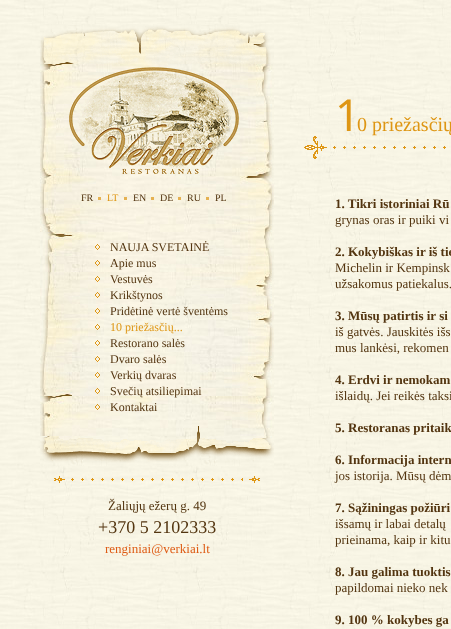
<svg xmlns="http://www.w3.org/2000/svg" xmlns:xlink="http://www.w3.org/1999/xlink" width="451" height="629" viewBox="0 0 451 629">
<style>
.cls-1{font:10px Liberation Serif;fill:#533510}
.cls-2{font:10px Liberation Serif;fill:#de9614}
.cls-3{font:12px Liberation Serif;fill:#533510}
.cls-4{font:12px Liberation Serif;fill:#de9614}
.cls-5{font:13px Liberation Serif;fill:#533510}
.cls-6{font:18px Liberation Serif;fill:#533510}
.cls-7{font:13px Liberation Serif;fill:#de5b14}
.cls-8{font:44px Noto Sans;fill:#de9614}
.cls-9{font:20px Liberation Serif;fill:#de9614}
.cls-10{font:bold 13px Liberation Serif;fill:#533510}
</style>
<rect width="100%" height="100%" fill="#ffffff"/>
<image xlink:href="image0.png" x="0" y="0" width="451" height="629"/>
<image xlink:href="image1.png" x="40" y="64" width="234" height="379"/>
<image xlink:href="image2.png" x="40" y="426" width="234" height="40"/>
<image xlink:href="image3.png" x="40" y="24" width="234" height="40"/>
<image xlink:href="image4.png" x="69" y="67" width="170" height="108"/>
<rect fill="#e5b151" x="98" y="197" width="3" height="3"/>
<rect fill="#e5b151" x="124" y="197" width="3" height="3"/>
<rect fill="#e5b151" x="151" y="197" width="3" height="3"/>
<rect fill="#e5b151" x="178" y="197" width="3" height="3"/>
<rect fill="#e5b151" x="206" y="197" width="3" height="3"/>
<image xlink:href="image5.png" x="95" y="244" width="5" height="6"/>
<image xlink:href="image6.png" x="95" y="260" width="5" height="6"/>
<image xlink:href="image7.png" x="95" y="276" width="5" height="6"/>
<image xlink:href="image8.png" x="95" y="292" width="5" height="6"/>
<image xlink:href="image9.png" x="95" y="308" width="5" height="6"/>
<image xlink:href="image10.png" x="95" y="324" width="5" height="6"/>
<image xlink:href="image11.png" x="95" y="340" width="5" height="6"/>
<image xlink:href="image12.png" x="95" y="356" width="5" height="6"/>
<image xlink:href="image13.png" x="95" y="372" width="5" height="6"/>
<image xlink:href="image14.png" x="95" y="388" width="5" height="6"/>
<image xlink:href="image15.png" x="95" y="404" width="5" height="6"/>
<image xlink:href="image16.png" x="54" y="476" width="11" height="7"/>
<image xlink:href="image17.png" x="71" y="478" width="172" height="3"/>
<image xlink:href="image18.png" x="249" y="476" width="11" height="7"/>
<image xlink:href="image19.png" x="304" y="136" width="23" height="23"/>
<image xlink:href="image20.png" x="333" y="146" width="113" height="3"/>
<text class="cls-1" x="81" y="201">FR</text>
<text class="cls-2" x="107" y="201">LT</text>
<text class="cls-1" x="133" y="201">EN</text>
<text class="cls-1" x="160" y="201">DE</text>
<text class="cls-1" x="187" y="201">RU</text>
<text class="cls-1" x="215" y="201">PL</text>
<text class="cls-3"><tspan x="110" y="251">NAUJA SVETAINĖ</tspan><tspan x="110" y="267">Apie mus</tspan><tspan x="110" y="283">Vestuvės</tspan><tspan x="110" y="299">Krikštynos</tspan><tspan x="110" y="315">Pridėtinė vertė šventėms</tspan></text>
<text class="cls-4" x="110" y="331">10 priežasčių...</text>
<text class="cls-3"><tspan x="110" y="347">Restorano salės</tspan><tspan x="110" y="363">Dvaro salės</tspan><tspan x="110" y="379">Verkių dvaras</tspan><tspan x="110" y="395">Svečių atsiliepimai</tspan><tspan x="110" y="411">Kontaktai</tspan></text>
<text class="cls-5" x="108" y="510">Žaliųjų ežerų g. 49</text>
<text class="cls-6" x="98" y="533">+370 5 2102333</text>
<text class="cls-7" x="105" y="553">renginiai@verkiai.lt</text>
<text class="cls-8" x="335" y="131">1</text>
<text class="cls-9" x="357" y="131">0 priežasčių</text>
<text class="cls-10" x="335" y="208">1. Tikri istoriniai Rū</text>
<text class="cls-5" x="335" y="224">grynas oras ir puiki vi</text>
<text class="cls-10" x="335" y="256">2. Kokybiškas ir iš tie</text>
<text class="cls-5"><tspan x="335" y="272">Michelin ir Kempinsk</tspan><tspan x="335" y="288">užsakomus patiekalus.</tspan></text>
<text class="cls-10" x="335" y="320">3. Mūsų patirtis ir si</text>
<text class="cls-5"><tspan x="335" y="336">iš gatvės. Jauskitės išs</tspan><tspan x="335" y="352">mus lankėsi, rekomen</tspan></text>
<text class="cls-10" x="335" y="384">4. Erdvi ir nemokam</text>
<text class="cls-5" x="335" y="400">išlaidų. Jei reikės taksi</text>
<text class="cls-10" x="335" y="432">5. Restoranas pritaik</text>
<text class="cls-10" x="335" y="464">6. Informacija intern</text>
<text class="cls-5" x="335" y="480">jos istorija. Mūsų dėm</text>
<text class="cls-10" x="335" y="512">7. Sąžiningas požiūri</text>
<text class="cls-5"><tspan x="335" y="528">išsamų ir labai detalų</tspan><tspan x="335" y="544">prieinama, kaip ir kitu</tspan></text>
<text class="cls-10" x="335" y="576">8. Jau galima tuoktis</text>
<text class="cls-5" x="335" y="592">papildomai nieko nek</text>
<text class="cls-10" x="335" y="624">9. 100 % kokybes ga</text>
</svg>
